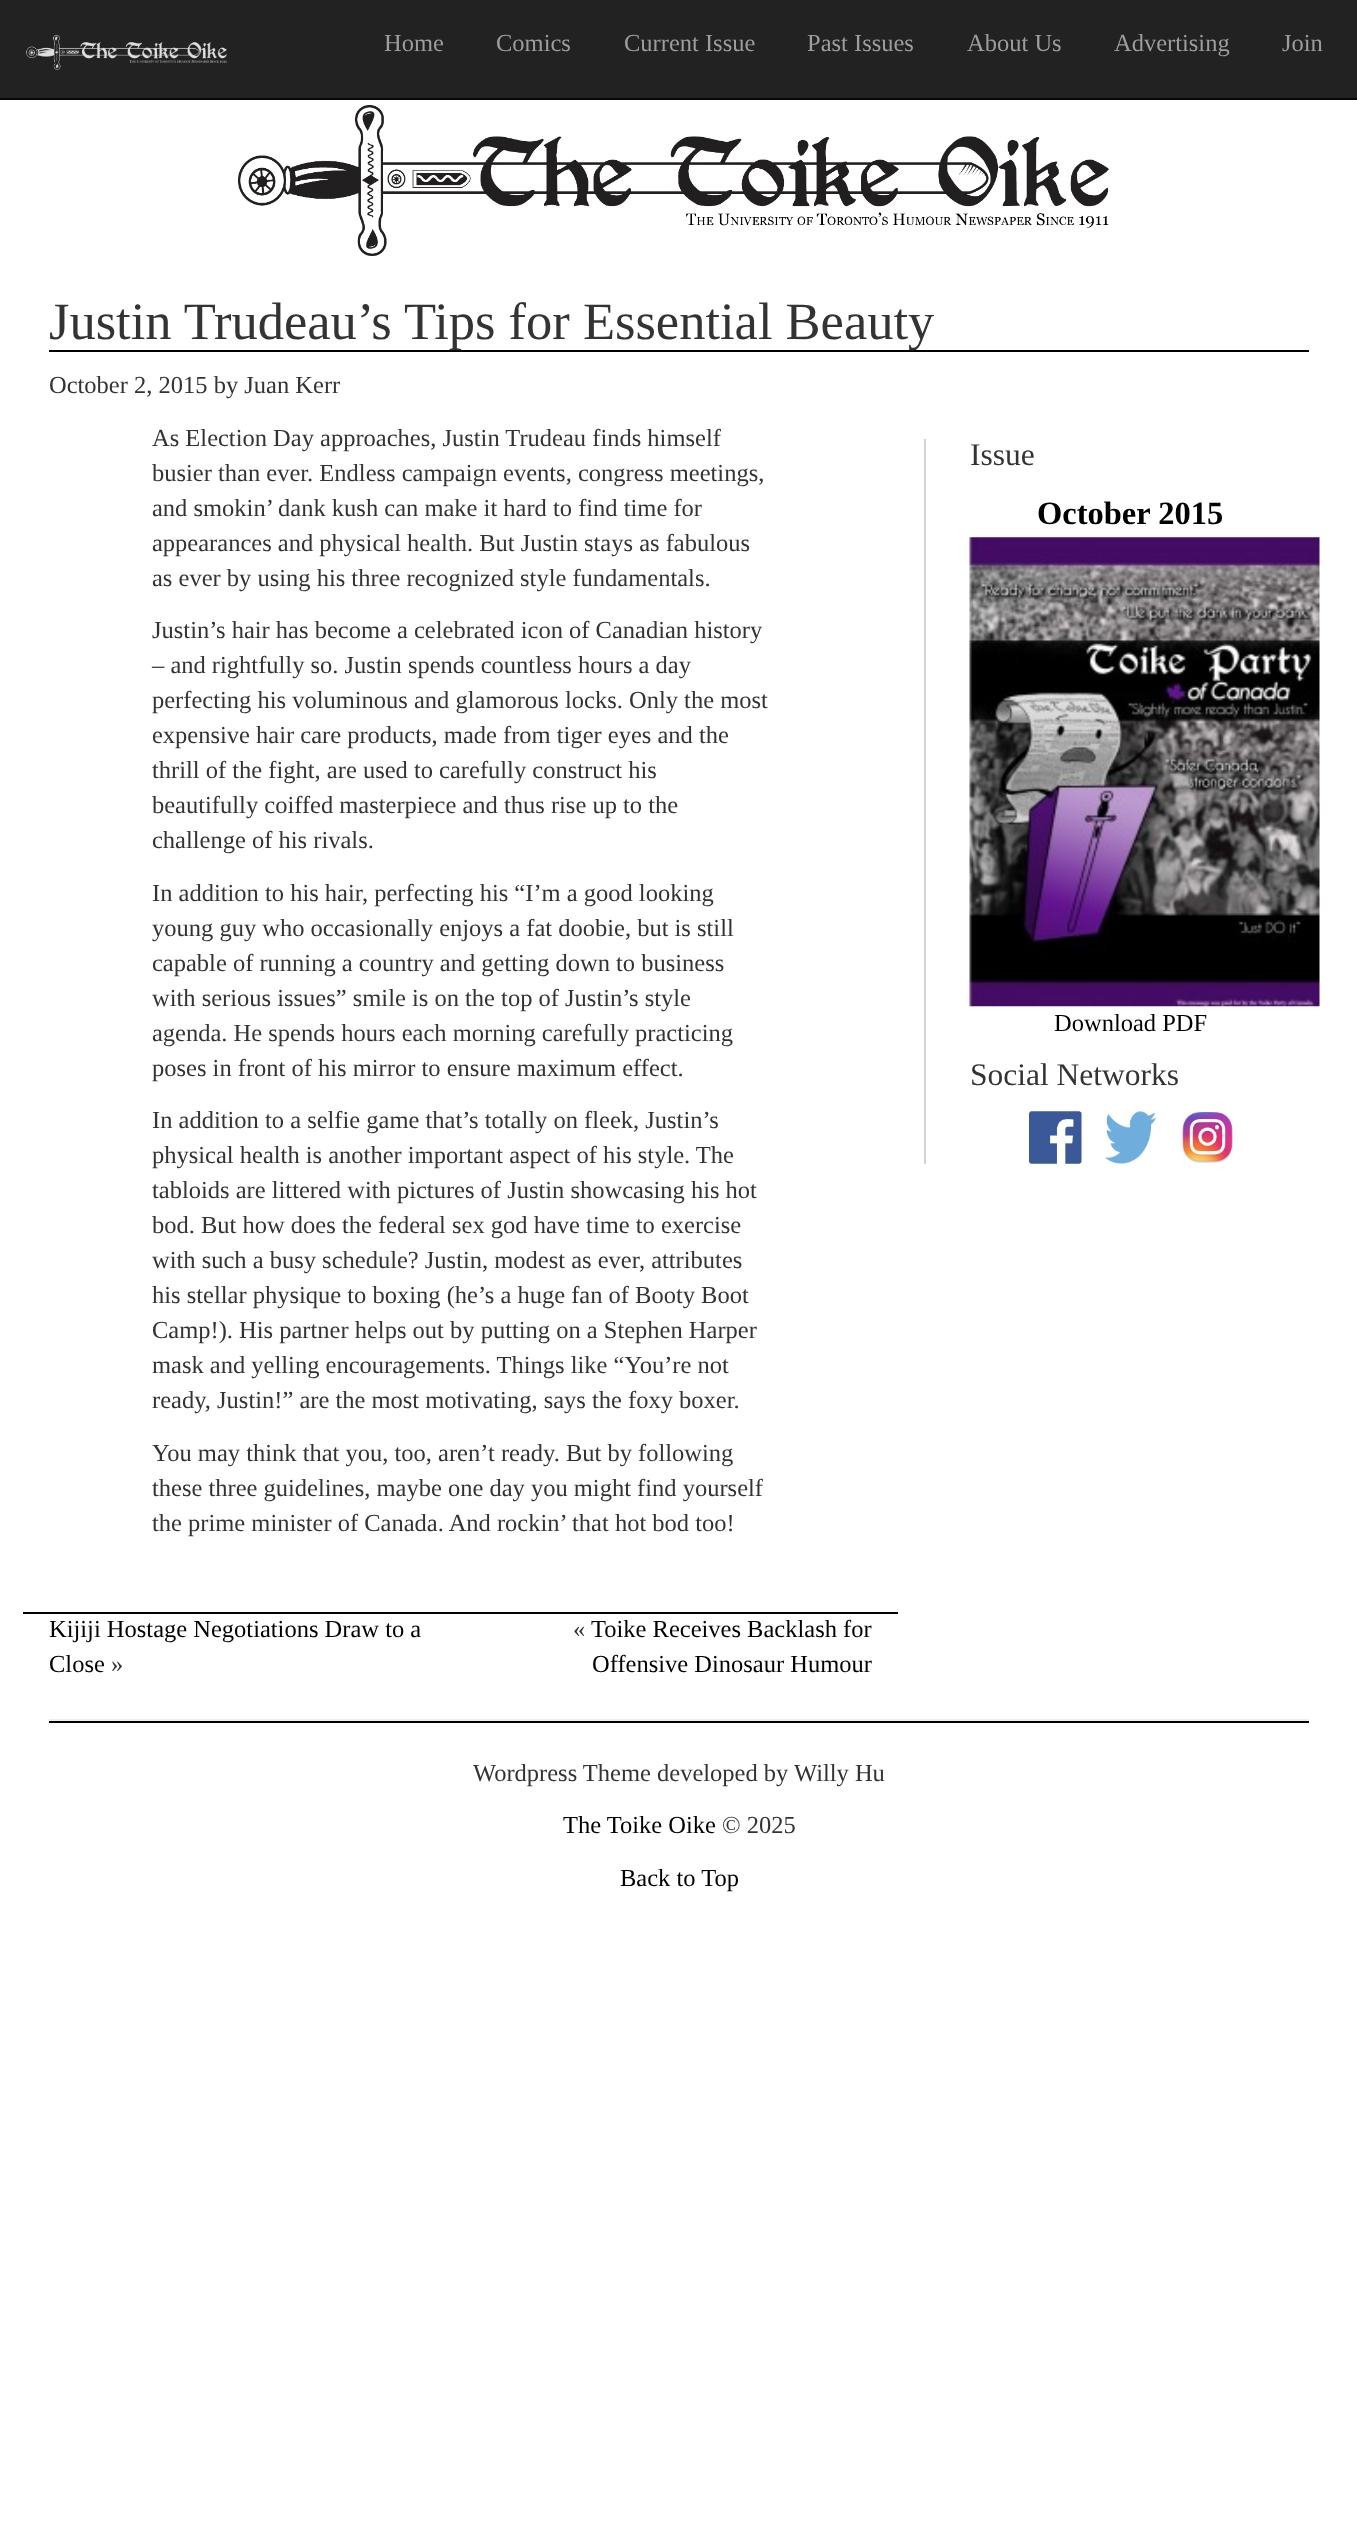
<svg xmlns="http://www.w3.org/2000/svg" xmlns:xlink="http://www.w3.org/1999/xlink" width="1357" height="2533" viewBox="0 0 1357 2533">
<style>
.cls-1{font:24.5px Liberation Serif;fill:#9d9d9d}
.cls-2{font:52.5px Liberation Serif;fill:#333333}
.cls-3{font:24.5px Liberation Serif;fill:#333333}
.cls-4{font:24.5px Liberation Serif;fill:#000000}
.cls-5{font:31.5px Liberation Serif;fill:#333333}
.cls-6{font:bold 32.5px Liberation Serif;fill:#000000}
</style>
<rect width="100%" height="100%" fill="#ffffff"/>
<rect fill="#222222" x="0" y="0" width="1357" height="98"/>
<rect fill="#080808" x="0" y="98" width="1357" height="2"/>
<image xlink:href="image0.png" x="26" y="35" width="201" height="36"/>
<image xlink:href="image1.png" x="238" y="105" width="871" height="151"/>
<rect fill="#000000" x="49" y="350" width="1260" height="2"/>
<rect fill="#000000" x="23" y="1612" width="875" height="2"/>
<rect fill="#d3d3d3" x="924" y="439" width="2" height="725"/>
<image xlink:href="image2.png" x="969" y="537" width="351" height="470"/>
<image xlink:href="image3.png" x="1029" y="1111" width="53" height="53"/>
<image xlink:href="image4.png" x="1105" y="1111" width="52" height="53"/>
<image xlink:href="image5.png" x="1182" y="1112" width="51" height="51"/>
<rect fill="#000000" x="49" y="1721" width="1260" height="2"/>
<rect fill="#eeeeee" x="49" y="1719" width="1260" height="2"/>
<text class="cls-1" x="384" y="51">Home</text>
<text class="cls-1" x="496" y="51">Comics</text>
<text class="cls-1" x="624" y="51">Current Issue</text>
<text class="cls-1" x="807" y="51">Past Issues</text>
<text class="cls-1" x="967" y="51">About Us</text>
<text class="cls-1" x="1114" y="51">Advertising</text>
<text class="cls-1" x="1282" y="51">Join</text>
<text class="cls-2" x="49" y="339">Justin Trudeau’s Tips for Essential Beauty</text>
<text class="cls-3" x="49" y="393">October 2, 2015 by Juan Kerr</text>
<text class="cls-3"><tspan x="152" y="446">As Election Day approaches, Justin Trudeau finds himself</tspan><tspan x="152" y="481">busier than ever. Endless campaign events, congress meetings,</tspan><tspan x="152" y="516">and smokin’ dank kush can make it hard to find time for</tspan><tspan x="152" y="551">appearances and physical health. But Justin stays as fabulous</tspan><tspan x="152" y="586">as ever by using his three recognized style fundamentals.</tspan></text>
<text class="cls-3"><tspan x="152" y="638">Justin’s hair has become a celebrated icon of Canadian history</tspan><tspan x="152" y="673">– and rightfully so. Justin spends countless hours a day</tspan><tspan x="152" y="708">perfecting his voluminous and glamorous locks. Only the most</tspan><tspan x="152" y="743">expensive hair care products, made from tiger eyes and the</tspan><tspan x="152" y="778">thrill of the fight, are used to carefully construct his</tspan><tspan x="152" y="813">beautifully coiffed masterpiece and thus rise up to the</tspan><tspan x="152" y="848">challenge of his rivals.</tspan></text>
<text class="cls-3"><tspan x="152" y="901">In addition to his hair, perfecting his “I’m a good looking</tspan><tspan x="152" y="936">young guy who occasionally enjoys a fat doobie, but is still</tspan><tspan x="152" y="971">capable of running a country and getting down to business</tspan><tspan x="152" y="1006">with serious issues” smile is on the top of Justin’s style</tspan><tspan x="152" y="1041">agenda. He spends hours each morning carefully practicing</tspan><tspan x="152" y="1076">poses in front of his mirror to ensure maximum effect.</tspan></text>
<text class="cls-3"><tspan x="152" y="1128">In addition to a selfie game that’s totally on fleek, Justin’s</tspan><tspan x="152" y="1163">physical health is another important aspect of his style. The</tspan><tspan x="152" y="1198">tabloids are littered with pictures of Justin showcasing his hot</tspan><tspan x="152" y="1233">bod. But how does the federal sex god have time to exercise</tspan><tspan x="152" y="1268">with such a busy schedule? Justin, modest as ever, attributes</tspan><tspan x="152" y="1303">his stellar physique to boxing (he’s a huge fan of Booty Boot</tspan><tspan x="152" y="1338">Camp!). His partner helps out by putting on a Stephen Harper</tspan><tspan x="152" y="1373">mask and yelling encouragements. Things like “You’re not</tspan><tspan x="152" y="1408">ready, Justin!” are the most motivating, says the foxy boxer.</tspan></text>
<text class="cls-3"><tspan x="152" y="1461">You may think that you, too, aren’t ready. But by following</tspan><tspan x="152" y="1496">these three guidelines, maybe one day you might find yourself</tspan><tspan x="152" y="1531">the prime minister of Canada. And rockin’ that hot bod too!</tspan></text>
<text class="cls-4"><tspan x="49" y="1637">Kijiji Hostage Negotiations Draw to a</tspan><tspan x="49" y="1672">Close</tspan></text>
<text class="cls-3" x="111" y="1672">»</text>
<text class="cls-3" x="573" y="1637">«</text>
<text class="cls-4" x="591" y="1637">Toike Receives Backlash for</text>
<text class="cls-4" x="592" y="1672">Offensive Dinosaur Humour</text>
<text class="cls-5" x="970" y="465">Issue</text>
<text class="cls-6" x="1037" y="524">October 2015</text>
<text class="cls-4" x="1054" y="1031">Download PDF</text>
<text class="cls-5" x="970" y="1085">Social Networks</text>
<text class="cls-3" x="473" y="1781">Wordpress Theme developed by Willy Hu</text>
<text class="cls-4" x="563" y="1833">The Toike Oike</text>
<text class="cls-3" x="722" y="1833">© 2025</text>
<text class="cls-4" x="620" y="1886">Back to Top</text>
</svg>
